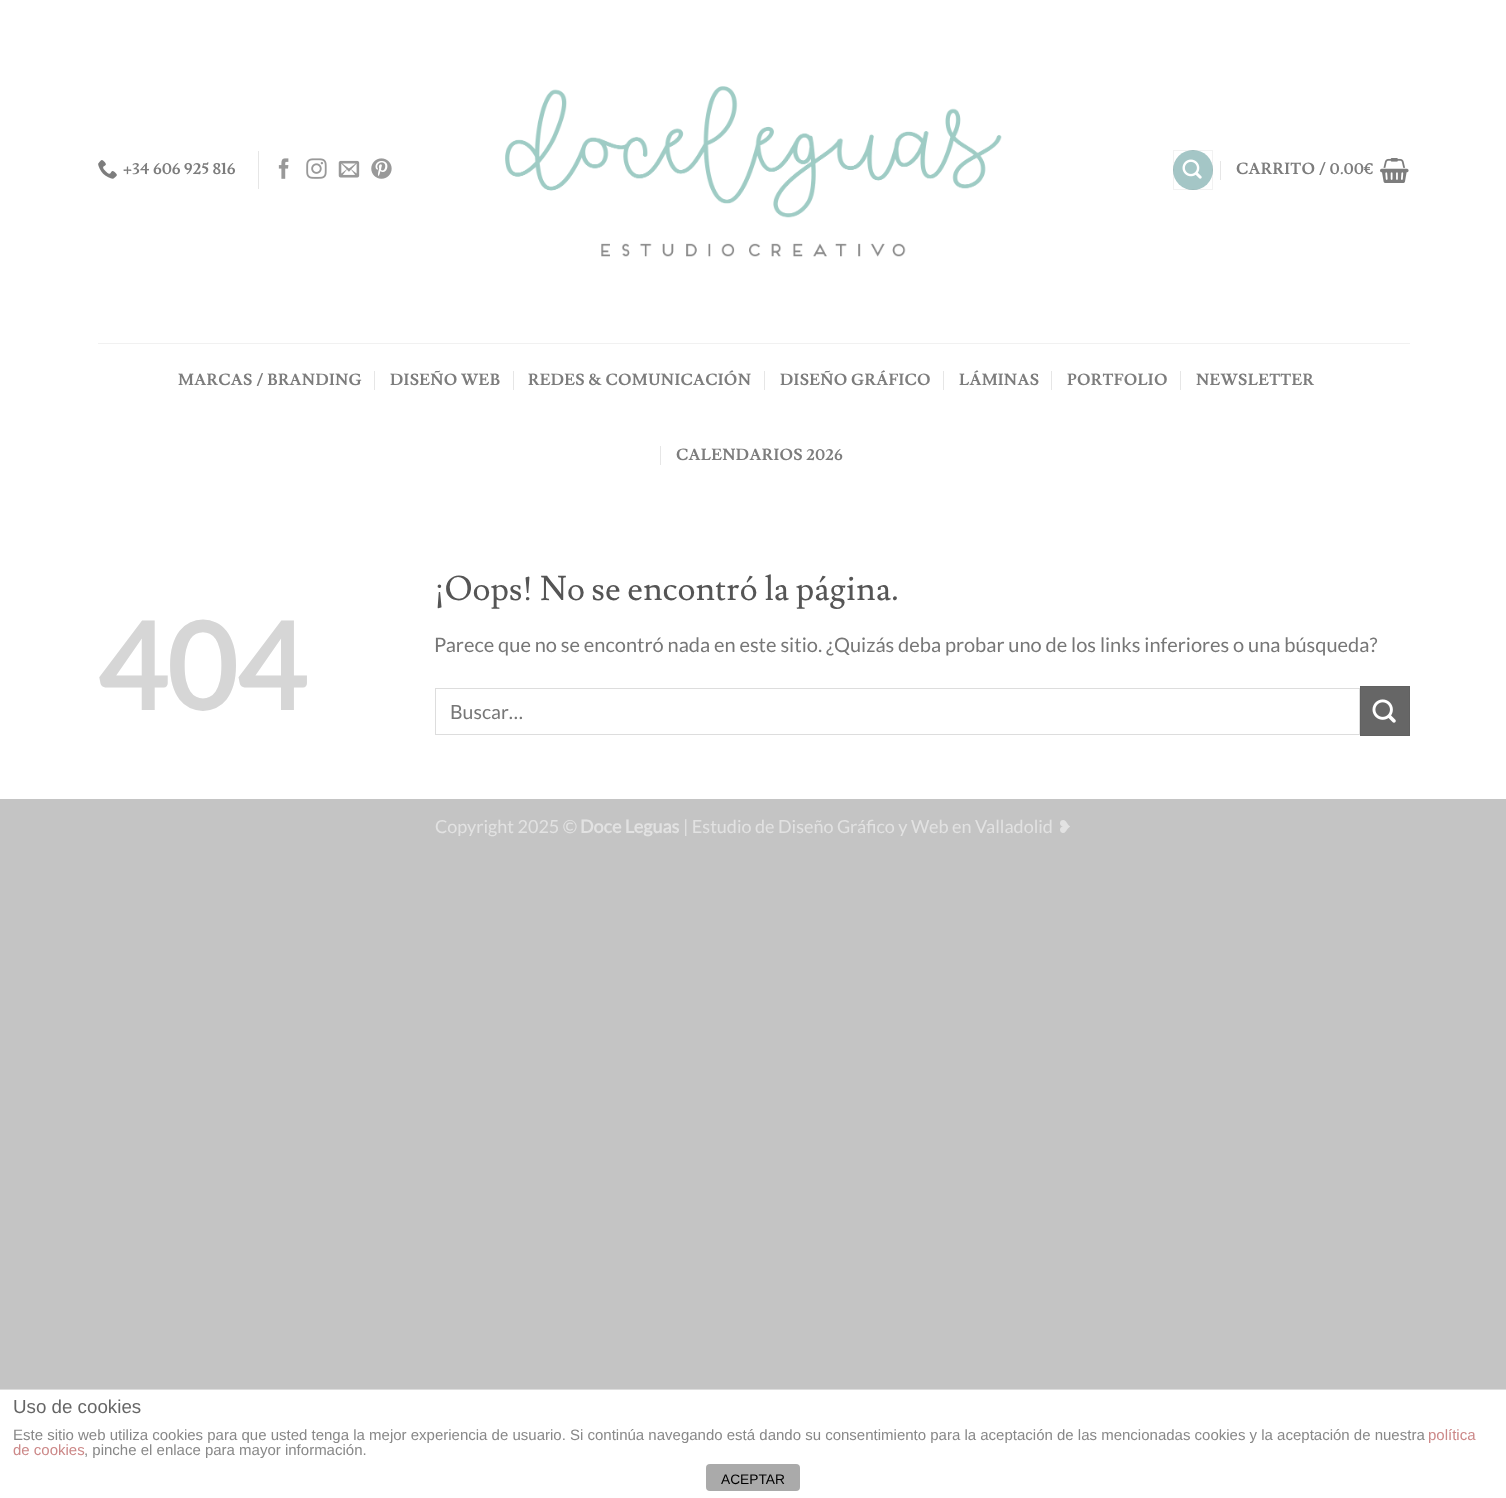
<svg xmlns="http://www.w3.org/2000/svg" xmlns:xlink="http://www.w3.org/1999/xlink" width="1506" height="1498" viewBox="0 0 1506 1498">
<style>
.cls-1{font:bold 16px Lusitana;letter-spacing:0.3px;fill:#7d7d7d}
.cls-2{font:bold 120px Lato;fill:#d6d6d6}
.cls-3{font:34px Lusitana;fill:#555555}
.cls-4{font:20px Lato;fill:#777777}
.cls-5{font:19.5px Lato;fill:#777777}
.cls-6{font:18px Lato;fill:#e2e2e2}
.cls-7{font:bold 18px Lato;fill:#e2e2e2}
.cls-8{font:18px DejaVu Sans;fill:#e2e2e2}
.cls-9{font:18.75px Liberation Sans;fill:#666666}
.cls-10{font:15px Liberation Sans;fill:#888888}
.cls-11{font:15px Liberation Sans;fill:#cc8888}
.cls-12{font:13.75px Liberation Sans;fill:#000000}
</style>
<rect width="100%" height="100%" fill="#c4c4c4"/>
<rect fill="#ffffff" x="0" y="0" width="1506" height="799"/>
<image xlink:href="image0.png" x="98" y="160" width="19" height="19"/>
<rect fill="#e6e6e6" x="258" y="151" width="1" height="38"/>
<image xlink:href="image1.png" x="278" y="158" width="11" height="21"/>
<image xlink:href="image2.png" x="306" y="158" width="21" height="21"/>
<image xlink:href="image3.png" x="338" y="160" width="22" height="18"/>
<image xlink:href="image4.png" x="371" y="158" width="21" height="21"/>
<image xlink:href="image5.png" x="505" y="86" width="497" height="171"/>
<circle fill="#a4c6c6" cx="1193" cy="170" r="20"/>
<rect fill="none" stroke="#000000" stroke-opacity="0.05" x="1173.5" y="150.5" width="39" height="39"/>
<image xlink:href="image6.png" x="1182" y="159" width="20" height="20"/>
<rect fill="#e6e6e6" x="1220" y="161" width="1" height="19"/>
<image xlink:href="image7.png" x="1380" y="158" width="29" height="25"/>
<rect fill="#f1f1f1" x="98" y="343" width="1312" height="1"/>
<rect fill="#e6e6e6" x="374" y="371" width="1" height="19"/>
<rect fill="#e6e6e6" x="513" y="371" width="1" height="19"/>
<rect fill="#e6e6e6" x="764" y="371" width="1" height="19"/>
<rect fill="#e6e6e6" x="943" y="371" width="1" height="19"/>
<rect fill="#e6e6e6" x="1051" y="371" width="1" height="19"/>
<rect fill="#e6e6e6" x="1180" y="371" width="1" height="19"/>
<rect fill="#e6e6e6" x="660" y="446" width="1" height="19"/>
<rect fill="none" stroke="#dddddd" x="435.5" y="688.5" width="924" height="46"/>
<rect fill="#666666" stroke="#616161" x="1360.5" y="686.5" width="49" height="49"/>
<image xlink:href="image8.png" x="1372" y="699" width="24" height="24"/>
<rect fill="#ffffff" x="0" y="1390" width="1506" height="108"/>
<rect fill="#dddddd" x="0" y="1389" width="1506" height="1"/>
<rect fill="#aaaaaa" x="706" y="1464" width="94" height="27" rx="4"/>
<text class="cls-1" x="123" y="174">+34 606 925 816</text>
<text class="cls-1" x="1236" y="174">CARRITO / 0.00€</text>
<text class="cls-1" x="178" y="385">MARCAS / BRANDING</text>
<text class="cls-1" x="390" y="385">DISEÑO WEB</text>
<text class="cls-1" x="528" y="385">REDES &amp; COMUNICACIÓN</text>
<text class="cls-1" x="780" y="385">DISEÑO GRÁFICO</text>
<text class="cls-1" x="959" y="385">LÁMINAS</text>
<text class="cls-1" x="1067" y="385">PORTFOLIO</text>
<text class="cls-1" x="1196" y="385">NEWSLETTER</text>
<text class="cls-1" x="676" y="460">CALENDARIOS 2026</text>
<text class="cls-2" x="97" y="710">404</text>
<text class="cls-3" x="434" y="600">¡Oops! No se encontró la página.</text>
<text class="cls-4" x="434" y="652">Parece que no se encontró nada en este sitio. ¿Quizás deba probar uno de los links inferiores o una búsqueda?</text>
<text class="cls-5" x="450" y="719">Buscar…</text>
<text class="cls-6" x="435" y="833">Copyright 2025 ©</text>
<text class="cls-7" x="580" y="833">Doce Leguas</text>
<text class="cls-6" x="683" y="833">| Estudio de Diseño Gráfico y Web en Valladolid</text>
<text class="cls-8" x="1057" y="833">❥</text>
<text class="cls-9" x="13" y="1413">Uso de cookies</text>
<text class="cls-10" x="13" y="1440">Este sitio web utiliza cookies para que usted tenga la mejor experiencia de usuario. Si continúa navegando está dando su consentimiento para la aceptación de las mencionadas cookies y la aceptación de nuestra</text>
<text class="cls-11" x="1428" y="1440">política</text>
<text class="cls-11" x="13" y="1455">de cookies</text>
<text class="cls-10" x="84" y="1455">, pinche el enlace para mayor información.</text>
<text class="cls-12" x="721" y="1484">ACEPTAR</text>
</svg>
